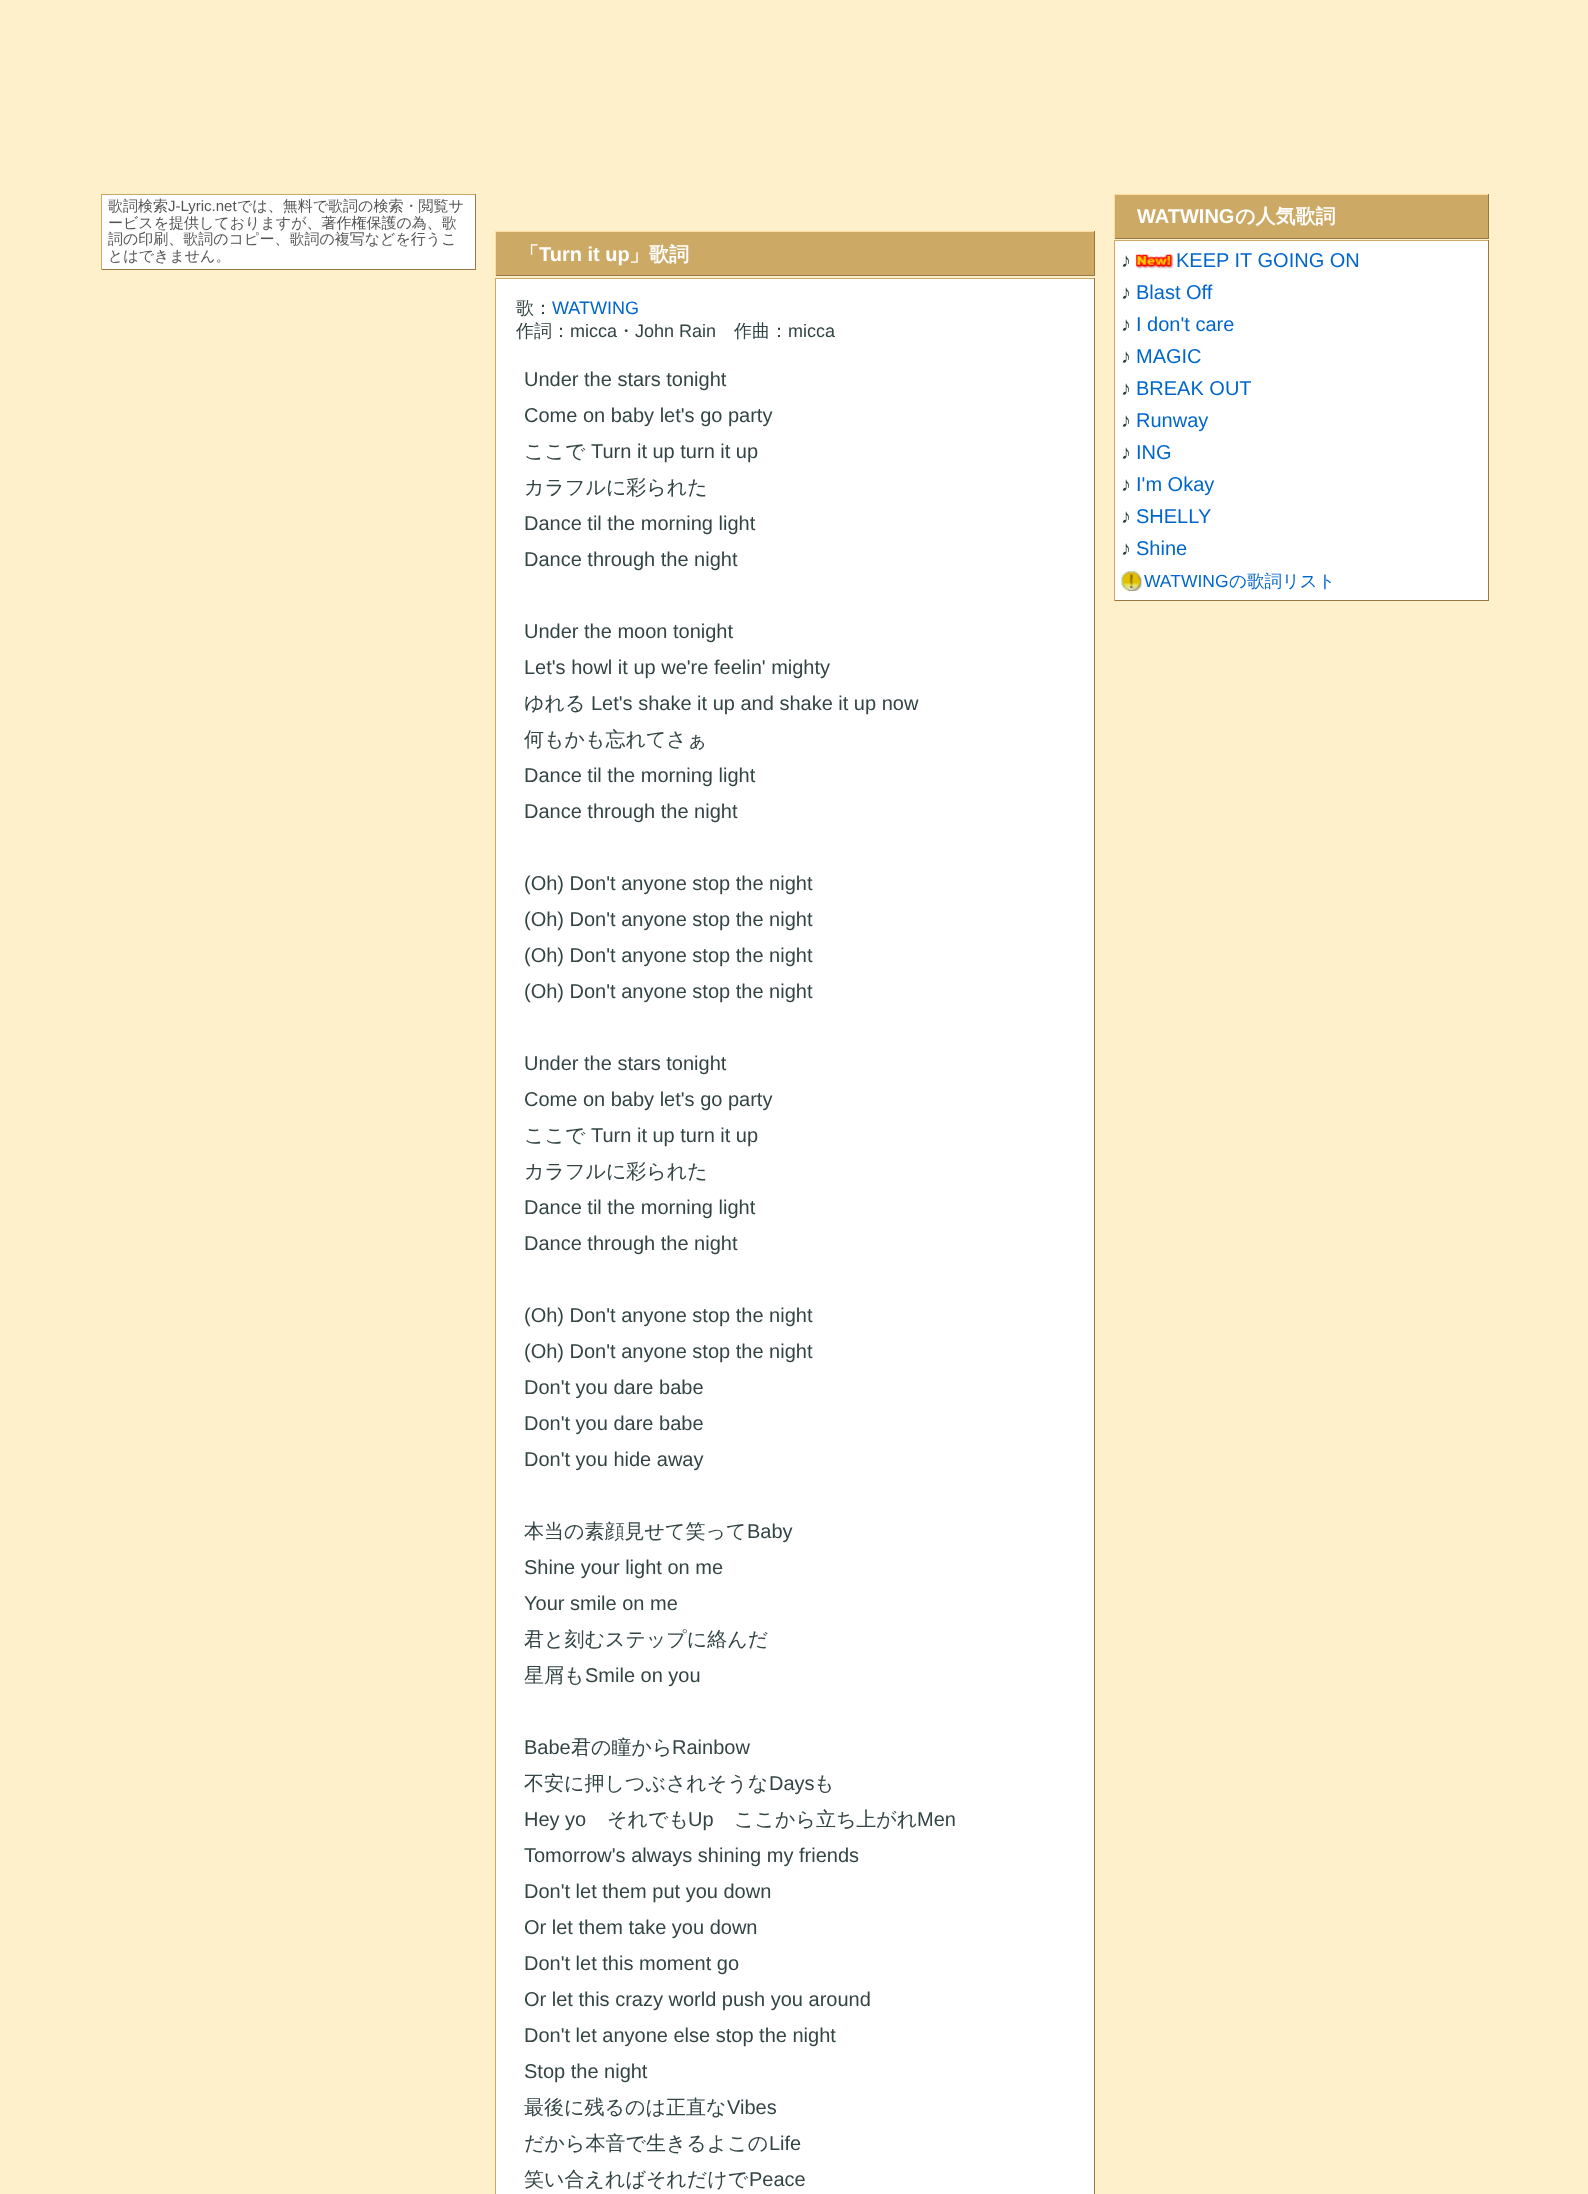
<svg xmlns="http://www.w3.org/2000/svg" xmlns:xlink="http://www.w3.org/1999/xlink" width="1588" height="2194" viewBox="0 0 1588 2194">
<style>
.cls-1{font:500 15px WenQuanYi Zen Hei;fill:#555555}
.cls-2{font:15px Liberation Sans;fill:#555555}
.cls-3{font:bold 20px WenQuanYi Zen Hei;fill:#ffffff}
.cls-4{font:bold 20px Liberation Sans;fill:#ffffff}
.cls-5{font:500 18px WenQuanYi Zen Hei;fill:#334444}
.cls-6{font:18px Liberation Sans;fill:#0066cc}
.cls-7{font:18px Liberation Sans;fill:#334444}
.cls-8{font:20px Liberation Sans;fill:#334444}
.cls-9{font:500 20px WenQuanYi Zen Hei;fill:#334444}
.cls-10{font:20px Liberation Sans;fill:#0066cc}
.cls-11{font:17.5px Liberation Sans;fill:#0066cc}
.cls-12{font:500 17.5px WenQuanYi Zen Hei;fill:#0066cc}
</style>
<rect width="100%" height="100%" fill="#fff0cc"/>
<rect fill="#ffffff" x="102" y="195" width="373" height="74"/>
<rect fill="#ccaa66" x="101" y="194" width="375" height="1"/>
<rect fill="#997744" x="475" y="194" width="1" height="76"/>
<rect fill="#997744" x="101" y="269" width="375" height="1"/>
<rect fill="#ccaa66" x="101" y="194" width="1" height="76"/>
<rect fill="#ccaa66" x="496" y="232" width="598" height="43"/>
<rect fill="#ffdd99" x="495" y="231" width="600" height="1"/>
<rect fill="#997744" x="1094" y="231" width="1" height="45"/>
<rect fill="#997744" x="495" y="275" width="600" height="1"/>
<rect fill="#ffdd99" x="495" y="231" width="1" height="45"/>
<rect fill="#ffffff" x="496" y="279" width="598" height="1915"/>
<rect fill="#ccaa66" x="495" y="278" width="600" height="1"/>
<rect fill="#997744" x="1094" y="278" width="1" height="1916"/>
<rect fill="#ccaa66" x="495" y="278" width="1" height="1916"/>
<rect fill="#ccaa66" x="1115" y="195" width="373" height="43"/>
<rect fill="#ffdd99" x="1114" y="194" width="375" height="1"/>
<rect fill="#997744" x="1488" y="194" width="1" height="45"/>
<rect fill="#997744" x="1114" y="238" width="375" height="1"/>
<rect fill="#ffdd99" x="1114" y="194" width="1" height="45"/>
<rect fill="#ffffff" x="1115" y="241" width="373" height="359"/>
<rect fill="#ccaa66" x="1114" y="240" width="375" height="1"/>
<rect fill="#997744" x="1488" y="240" width="1" height="361"/>
<rect fill="#997744" x="1114" y="600" width="375" height="1"/>
<rect fill="#ccaa66" x="1114" y="240" width="1" height="361"/>
<image xlink:href="image0.png" x="1136" y="254" width="38" height="15"/>
<image xlink:href="image1.png" x="1121" y="571" width="22" height="20"/>
<text class="cls-1" x="108" y="211">歌詞検索</text>
<text class="cls-2" x="168" y="211">J-Lyric.net</text>
<text class="cls-1" x="237" y="211">では、無料で歌詞の検索・閲覧サ</text>
<text class="cls-1"><tspan x="108" y="228">ービスを提供しておりますが、著作権保護の為、歌</tspan><tspan x="108" y="244">詞の印刷、歌詞のコピー、歌詞の複写などを行うこ</tspan><tspan x="108" y="261">とはできません。</tspan></text>
<text class="cls-3" x="519" y="261">「</text>
<text class="cls-4" x="539" y="261">Turn it up</text>
<text class="cls-3" x="629" y="261">」歌詞</text>
<text class="cls-5" x="516" y="314">歌：</text>
<text class="cls-6" x="552" y="314">WATWING</text>
<text class="cls-5" x="516" y="337">作詞：</text>
<text class="cls-7" x="570" y="337">micca</text>
<text class="cls-5" x="617" y="337">・</text>
<text class="cls-7" x="635" y="337">John Rain</text>
<text class="cls-5" x="734" y="337">作曲：</text>
<text class="cls-7" x="788" y="337">micca</text>
<text class="cls-8"><tspan x="524" y="386">Under the stars tonight</tspan><tspan x="524" y="422">Come on baby let's go party</tspan></text>
<text class="cls-9" x="524" y="458">ここで</text>
<text class="cls-8" x="591" y="458">Turn it up turn it up</text>
<text class="cls-9" x="524" y="494">カラフルに彩られた</text>
<text class="cls-8"><tspan x="524" y="530">Dance til the morning light</tspan><tspan x="524" y="566">Dance through the night</tspan></text>
<text class="cls-8"><tspan x="524" y="638">Under the moon tonight</tspan><tspan x="524" y="674">Let's howl it up we're feelin' mighty</tspan></text>
<text class="cls-9" x="524" y="710">ゆれる</text>
<text class="cls-8" x="591" y="710">Let's shake it up and shake it up now</text>
<text class="cls-9" x="524" y="746">何もかも忘れてさぁ</text>
<text class="cls-8"><tspan x="524" y="782">Dance til the morning light</tspan><tspan x="524" y="818">Dance through the night</tspan></text>
<text class="cls-8"><tspan x="524" y="890">(Oh) Don't anyone stop the night</tspan><tspan x="524" y="926">(Oh) Don't anyone stop the night</tspan><tspan x="524" y="962">(Oh) Don't anyone stop the night</tspan><tspan x="524" y="998">(Oh) Don't anyone stop the night</tspan></text>
<text class="cls-8"><tspan x="524" y="1070">Under the stars tonight</tspan><tspan x="524" y="1106">Come on baby let's go party</tspan></text>
<text class="cls-9" x="524" y="1142">ここで</text>
<text class="cls-8" x="591" y="1142">Turn it up turn it up</text>
<text class="cls-9" x="524" y="1178">カラフルに彩られた</text>
<text class="cls-8"><tspan x="524" y="1214">Dance til the morning light</tspan><tspan x="524" y="1250">Dance through the night</tspan></text>
<text class="cls-8"><tspan x="524" y="1322">(Oh) Don't anyone stop the night</tspan><tspan x="524" y="1358">(Oh) Don't anyone stop the night</tspan><tspan x="524" y="1394">Don't you dare babe</tspan><tspan x="524" y="1430">Don't you dare babe</tspan><tspan x="524" y="1466">Don't you hide away</tspan></text>
<text class="cls-9" x="524" y="1538">本当の素顔見せて笑って</text>
<text class="cls-8" x="747" y="1538">Baby</text>
<text class="cls-8"><tspan x="524" y="1574">Shine your light on me</tspan><tspan x="524" y="1610">Your smile on me</tspan></text>
<text class="cls-9"><tspan x="524" y="1646">君と刻むステップに絡んだ</tspan><tspan x="524" y="1682">星屑も</tspan></text>
<text class="cls-8" x="585" y="1682">Smile on you</text>
<text class="cls-8" x="524" y="1754">Babe</text>
<text class="cls-9" x="571" y="1754">君の瞳から</text>
<text class="cls-8" x="672" y="1754">Rainbow</text>
<text class="cls-9" x="524" y="1790">不安に押しつぶされそうな</text>
<text class="cls-8" x="769" y="1790">Days</text>
<text class="cls-9" x="814" y="1790">も</text>
<text class="cls-8" x="524" y="1826">Hey yo</text>
<text class="cls-9" x="607" y="1826">それでも</text>
<text class="cls-8" x="688" y="1826">Up</text>
<text class="cls-9" x="734" y="1826">ここから立ち上がれ</text>
<text class="cls-8" x="917" y="1826">Men</text>
<text class="cls-8"><tspan x="524" y="1862">Tomorrow's always shining my friends</tspan><tspan x="524" y="1898">Don't let them put you down</tspan><tspan x="524" y="1934">Or let them take you down</tspan><tspan x="524" y="1970">Don't let this moment go</tspan><tspan x="524" y="2006">Or let this crazy world push you around</tspan><tspan x="524" y="2042">Don't let anyone else stop the night</tspan><tspan x="524" y="2078">Stop the night</tspan></text>
<text class="cls-9" x="524" y="2114">最後に残るのは正直な</text>
<text class="cls-8" x="727" y="2114">Vibes</text>
<text class="cls-9" x="524" y="2150">だから本音で生きるよこの</text>
<text class="cls-8" x="769" y="2150">Life</text>
<text class="cls-9" x="524" y="2186">笑い合えればそれだけで</text>
<text class="cls-8" x="749" y="2186">Peace</text>
<text class="cls-4" x="1137" y="223">WATWING</text>
<text class="cls-3" x="1235" y="223">の人気歌詞</text>
<text class="cls-8" x="1121" y="267">♪</text>
<text class="cls-10" x="1176" y="267">KEEP IT GOING ON</text>
<text class="cls-8" x="1121" y="299">♪</text>
<text class="cls-10" x="1136" y="299">Blast Off</text>
<text class="cls-8" x="1121" y="331">♪</text>
<text class="cls-10" x="1136" y="331">I don't care</text>
<text class="cls-8" x="1121" y="363">♪</text>
<text class="cls-10" x="1136" y="363">MAGIC</text>
<text class="cls-8" x="1121" y="395">♪</text>
<text class="cls-10" x="1136" y="395">BREAK OUT</text>
<text class="cls-8" x="1121" y="427">♪</text>
<text class="cls-10" x="1136" y="427">Runway</text>
<text class="cls-8" x="1121" y="459">♪</text>
<text class="cls-10" x="1136" y="459">ING</text>
<text class="cls-8" x="1121" y="491">♪</text>
<text class="cls-10" x="1136" y="491">I'm Okay</text>
<text class="cls-8" x="1121" y="523">♪</text>
<text class="cls-10" x="1136" y="523">SHELLY</text>
<text class="cls-8" x="1121" y="555">♪</text>
<text class="cls-10" x="1136" y="555">Shine</text>
<text class="cls-11" x="1144" y="587">WATWING</text>
<text class="cls-12" x="1229" y="587">の歌詞リスト</text>
</svg>
